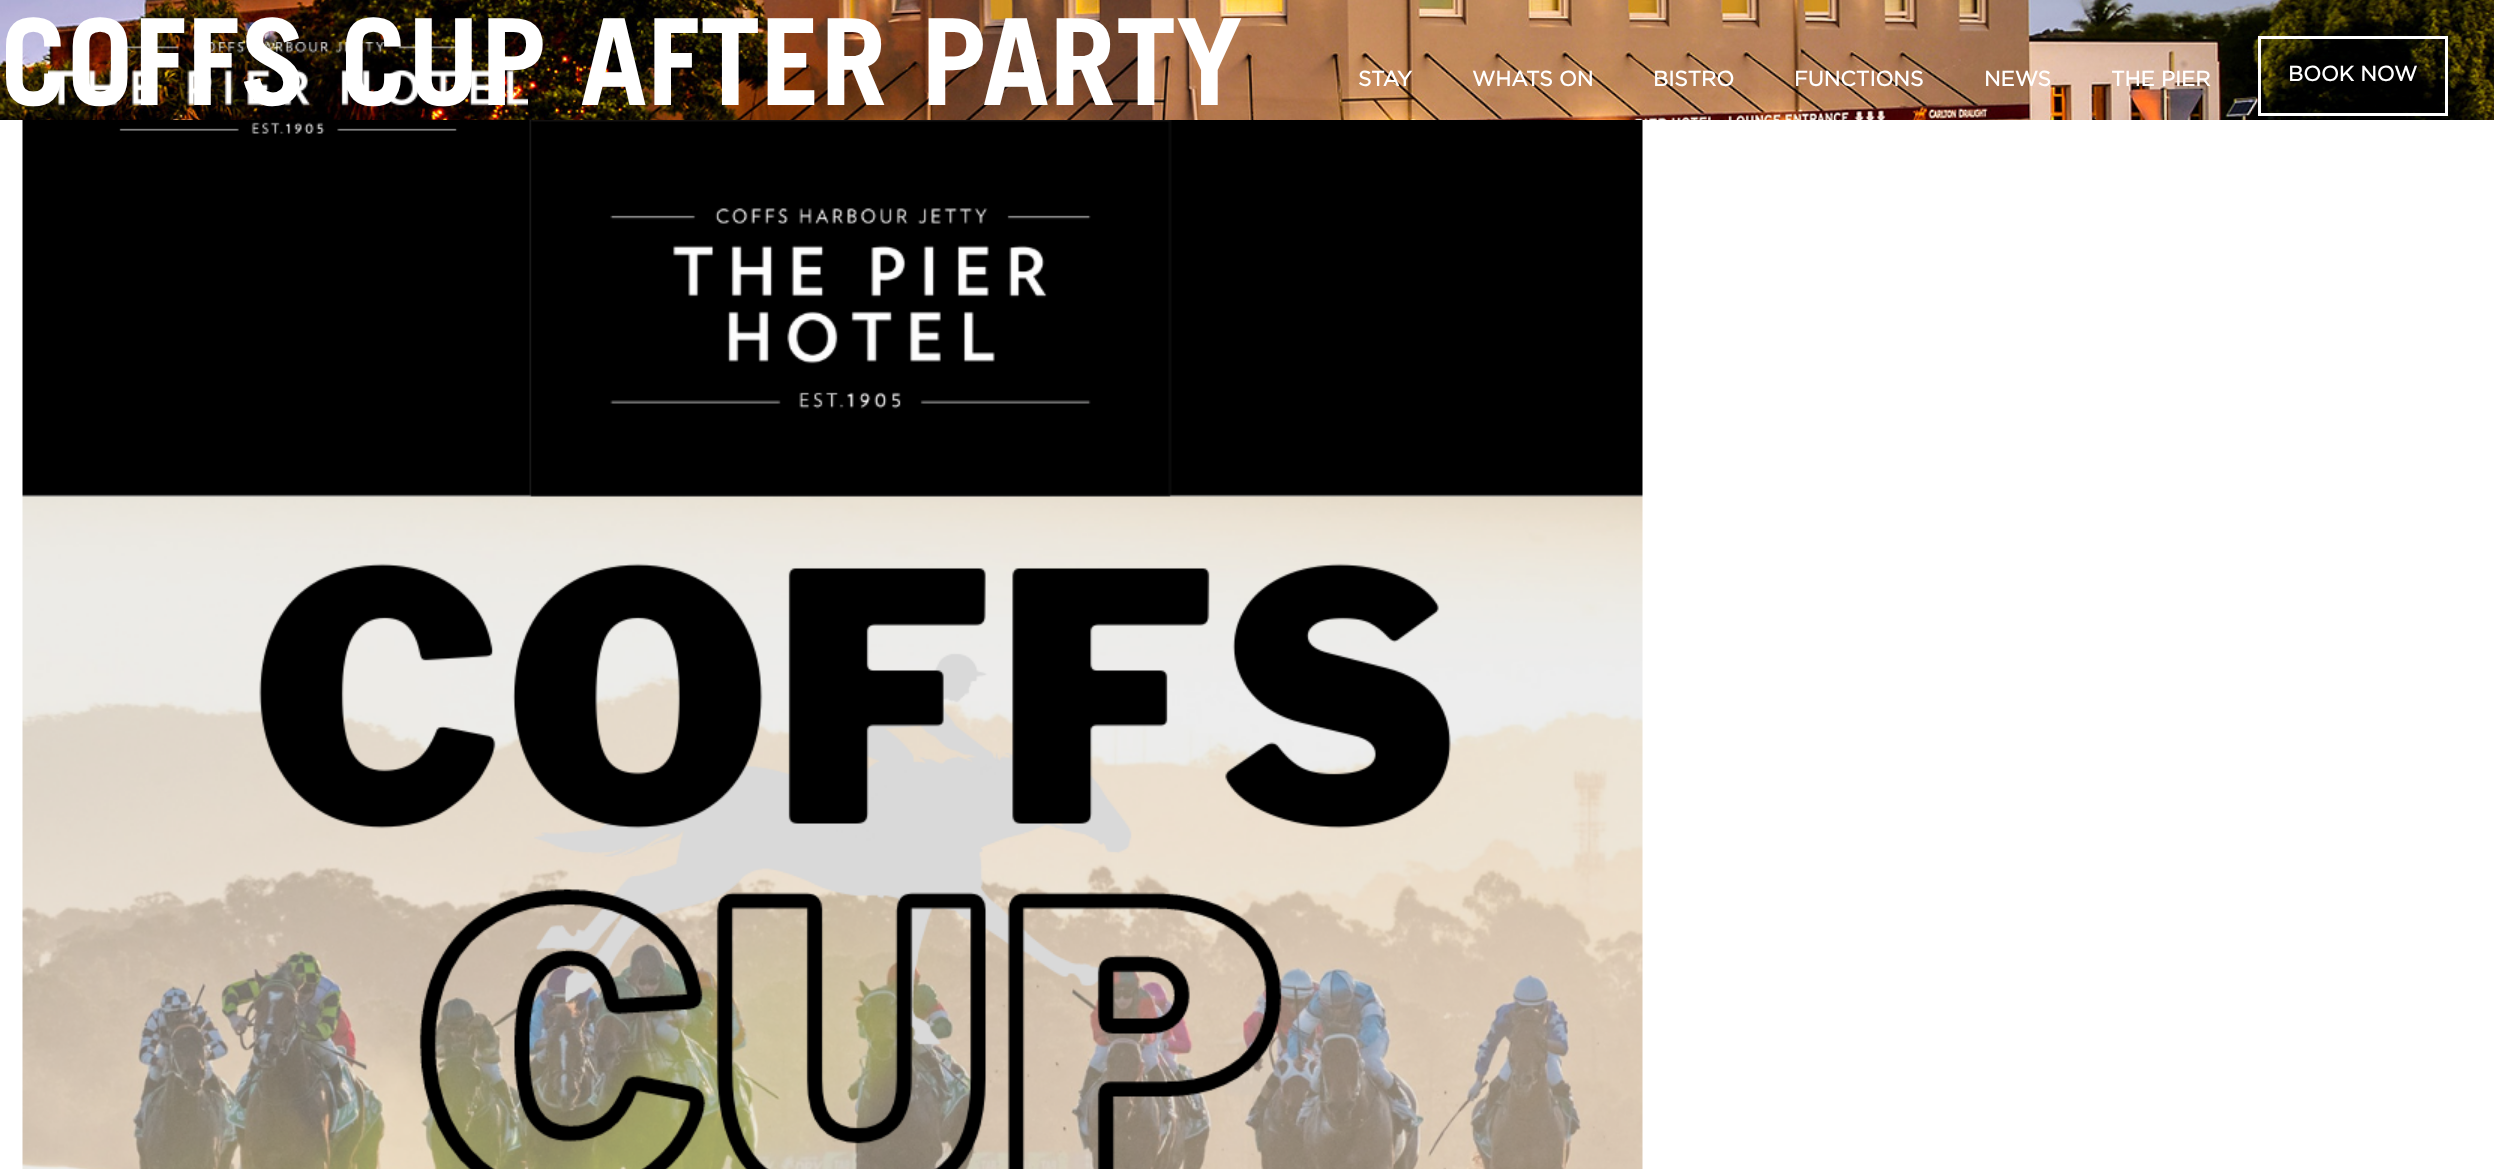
<svg xmlns="http://www.w3.org/2000/svg" xmlns:xlink="http://www.w3.org/1999/xlink" width="2494" height="1169" viewBox="0 0 2494 1169">
<style>
.cls-1{font:bold 120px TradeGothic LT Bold;fill:#ffffff}
.cls-2{font:bold 21px Gotham;fill:#ffffff}
</style>
<rect width="100%" height="100%" fill="#ffffff"/>
<image xlink:href="image0.png" x="0" y="0" width="2494" height="120"/>
<rect fill="none" stroke="#ffffff" stroke-width="3" x="2259.5" y="37.5" width="187" height="77"/>
<image xlink:href="image2.png" x="22" y="120" width="1621" height="1049"/>
<text class="cls-1" x="0" y="105">COFFS CUP AFTER PARTY</text>
<image xlink:href="image1.png" x="48" y="42" width="480" height="92"/>
<text class="cls-2" x="1358" y="86">STAY</text>
<text class="cls-2" x="1472" y="86">WHATS ON</text>
<text class="cls-2" x="1653" y="86">BISTRO</text>
<text class="cls-2" x="1794" y="86">FUNCTIONS</text>
<text class="cls-2" x="1984" y="86">NEWS</text>
<text class="cls-2" x="2111" y="86">THE PIER</text>
<text class="cls-2" x="2288" y="81">BOOK NOW</text>
</svg>
